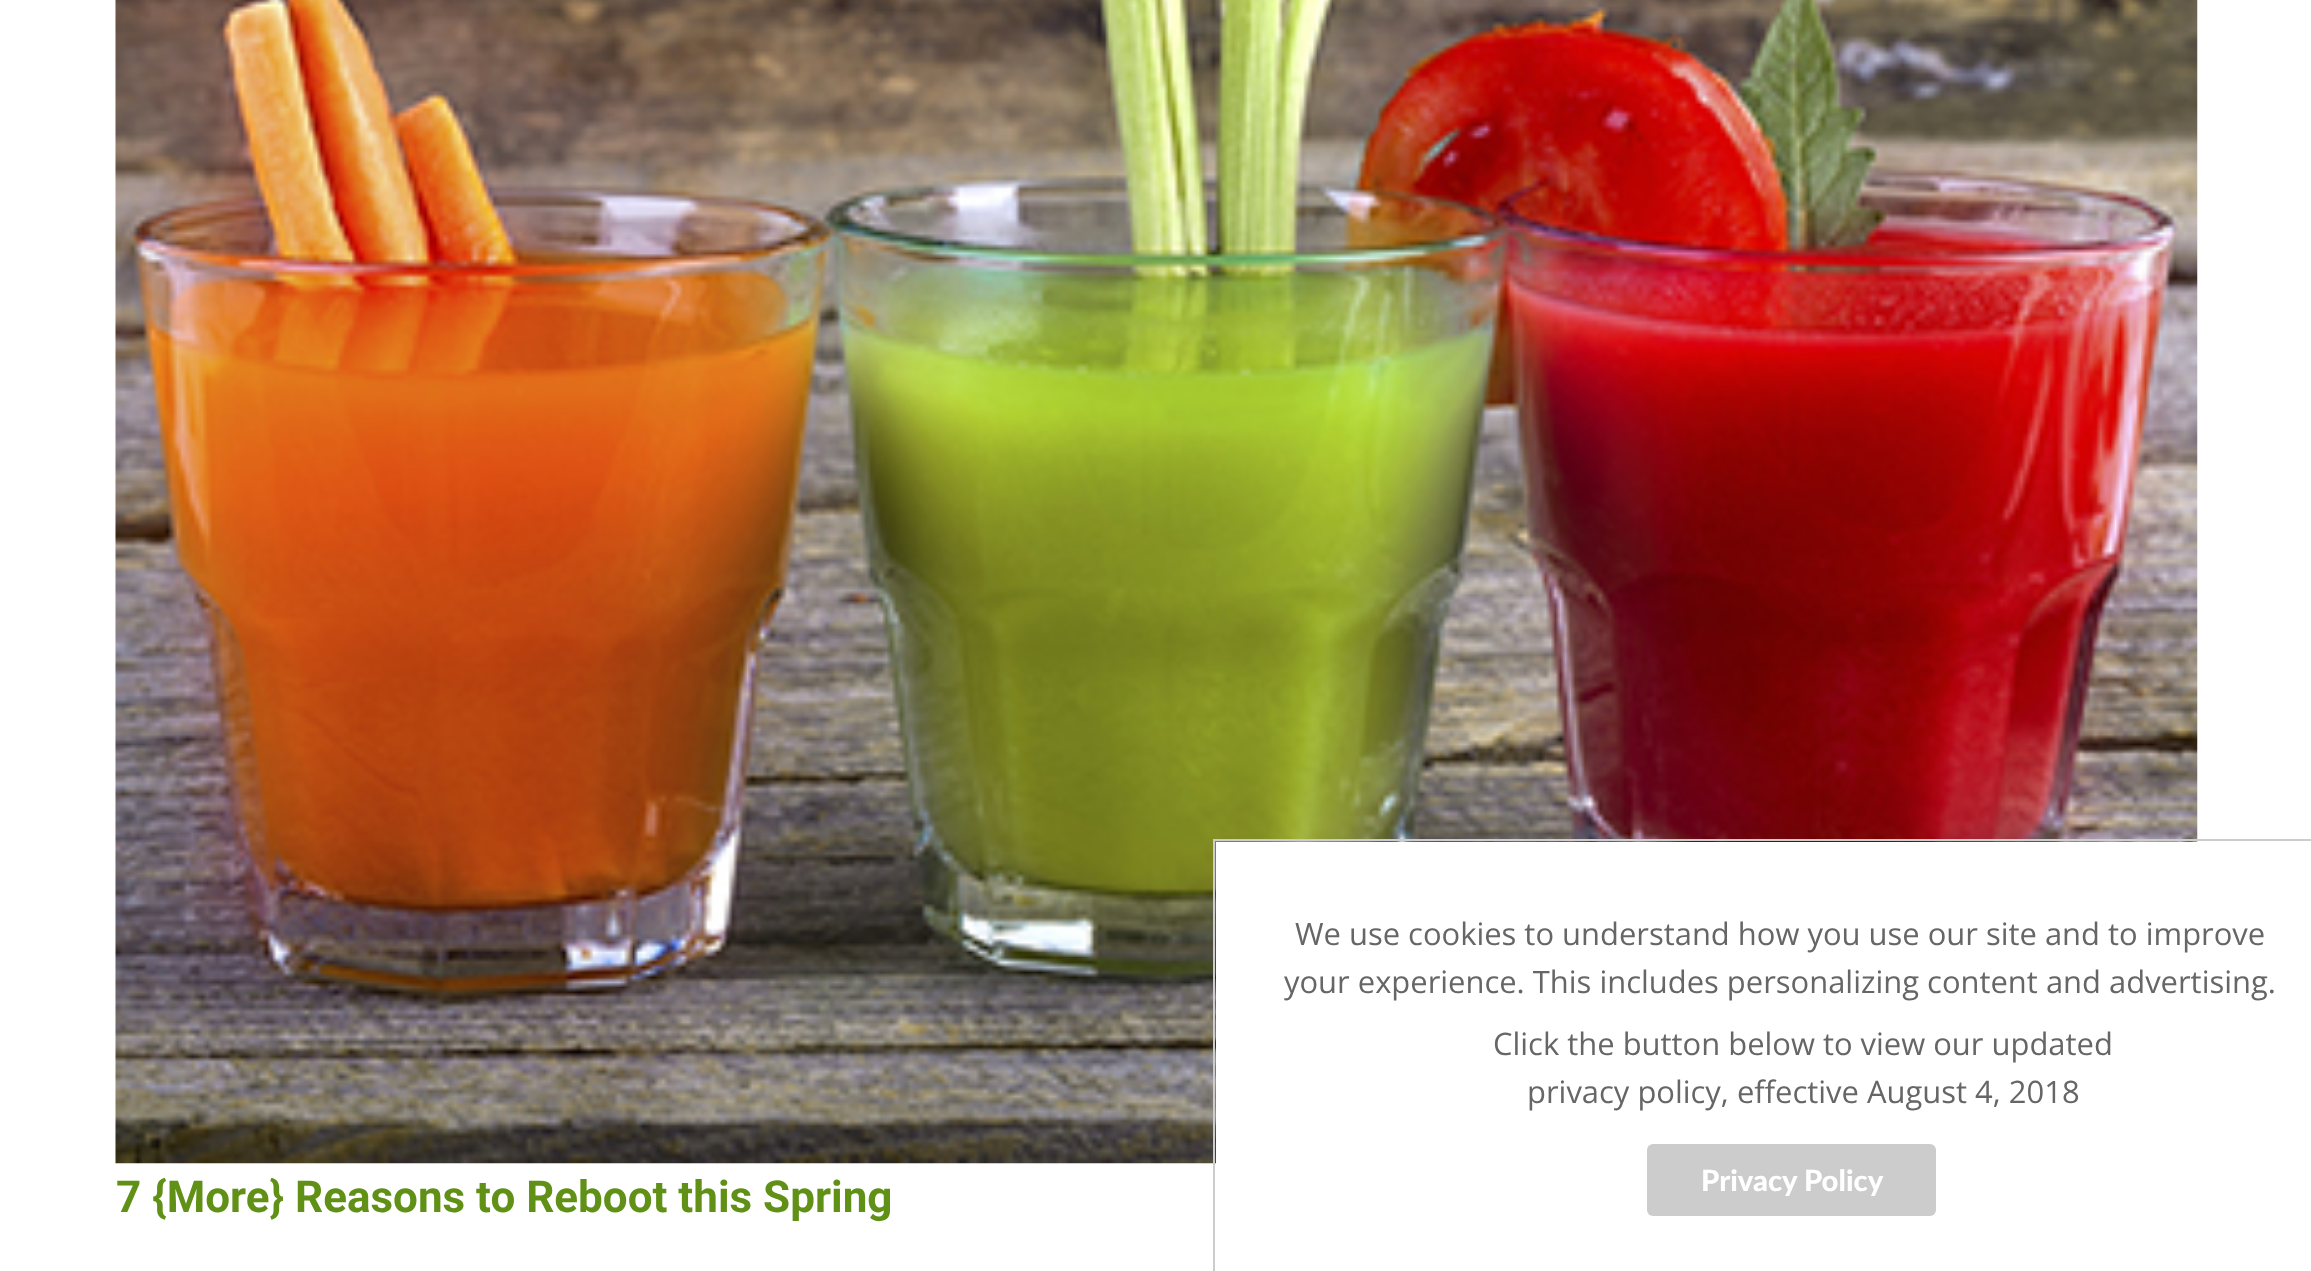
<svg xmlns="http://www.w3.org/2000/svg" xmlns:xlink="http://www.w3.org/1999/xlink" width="2311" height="1271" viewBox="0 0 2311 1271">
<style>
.cls-1{font:bold 44px Roboto;fill:#609116}
.cls-2{font:30.95px Open Sans;fill:#666666}
.cls-3{font:900 29.25px Lato;fill:#ffffff}
</style>
<rect width="100%" height="100%" fill="#ffffff"/>
<image xlink:href="image0.png" x="115" y="0" width="2083" height="1164"/>
<rect fill="none" stroke="#cccccc" stroke-width="2" x="1214" y="840" width="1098" height="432"/>
<rect fill="#ffffff" x="1216" y="842" width="982" height="322"/>
<rect fill="#cccccc" x="1647" y="1144" width="289" height="72" rx="6"/>
<text class="cls-1" x="116" y="1212">7 {More} Reasons to Reboot this Spring</text>
<text class="cls-2" x="1295" y="945">We use cookies to understand how you use our site and to improve</text>
<text class="cls-2" x="1284" y="993">your experience. This includes personalizing content and advertising.</text>
<text class="cls-2" x="1493" y="1055">Click the button below to view our updated</text>
<text class="cls-2" x="1527" y="1103">privacy policy, effective August 4, 2018</text>
<text class="cls-3" x="1701" y="1191">Privacy Policy</text>
</svg>
